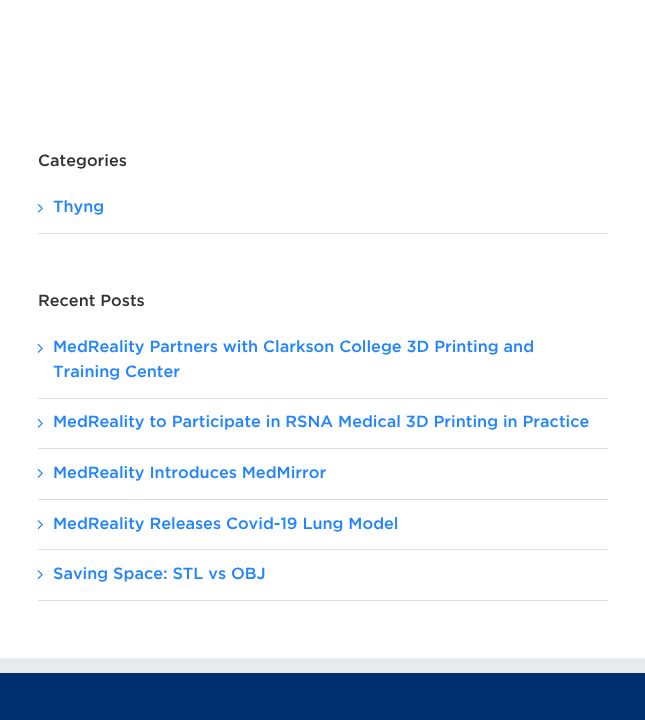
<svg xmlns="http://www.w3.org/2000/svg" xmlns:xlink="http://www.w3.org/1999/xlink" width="645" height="720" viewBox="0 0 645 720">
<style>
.cls-1{font:500 16.25px Gotham;fill:#333333}
.cls-2{font:500 16.25px Gotham;fill:#2284ff}
</style>
<rect width="100%" height="100%" fill="#ffffff"/>
<rect fill="#e0dede" x="38" y="233" width="570" height="1"/>
<image xlink:href="image0.png" x="37" y="203" width="6" height="10"/>
<rect fill="#e0dede" x="38" y="398" width="570" height="1"/>
<image xlink:href="image0.png" x="37" y="343" width="6" height="10"/>
<rect fill="#e0dede" x="38" y="448" width="570" height="1"/>
<image xlink:href="image0.png" x="37" y="418" width="6" height="10"/>
<rect fill="#e0dede" x="38" y="499" width="570" height="1"/>
<image xlink:href="image0.png" x="37" y="468" width="6" height="10"/>
<rect fill="#e0dede" x="38" y="549" width="570" height="1"/>
<image xlink:href="image1.png" x="37" y="520" width="6" height="10"/>
<rect fill="#e0dede" x="38" y="600" width="570" height="1"/>
<image xlink:href="image1.png" x="37" y="570" width="6" height="10"/>
<rect fill="#002f6f" x="0" y="673" width="645" height="47"/>
<rect fill="#e9eaee" x="0" y="658" width="645" height="15"/>
<text class="cls-1" x="38" y="166">Categories</text>
<text class="cls-2" x="53" y="212">Thyng</text>
<text class="cls-1" x="38" y="306">Recent Posts</text>
<text class="cls-2"><tspan x="53" y="352">MedReality Partners with Clarkson College 3D Printing and</tspan><tspan x="53" y="377">Training Center</tspan></text>
<text class="cls-2" x="53" y="427">MedReality to Participate in RSNA Medical 3D Printing in Practice</text>
<text class="cls-2" x="53" y="478">MedReality Introduces MedMirror</text>
<text class="cls-2" x="53" y="529">MedReality Releases Covid-19 Lung Model</text>
<text class="cls-2" x="53" y="579">Saving Space: STL vs OBJ</text>
</svg>
